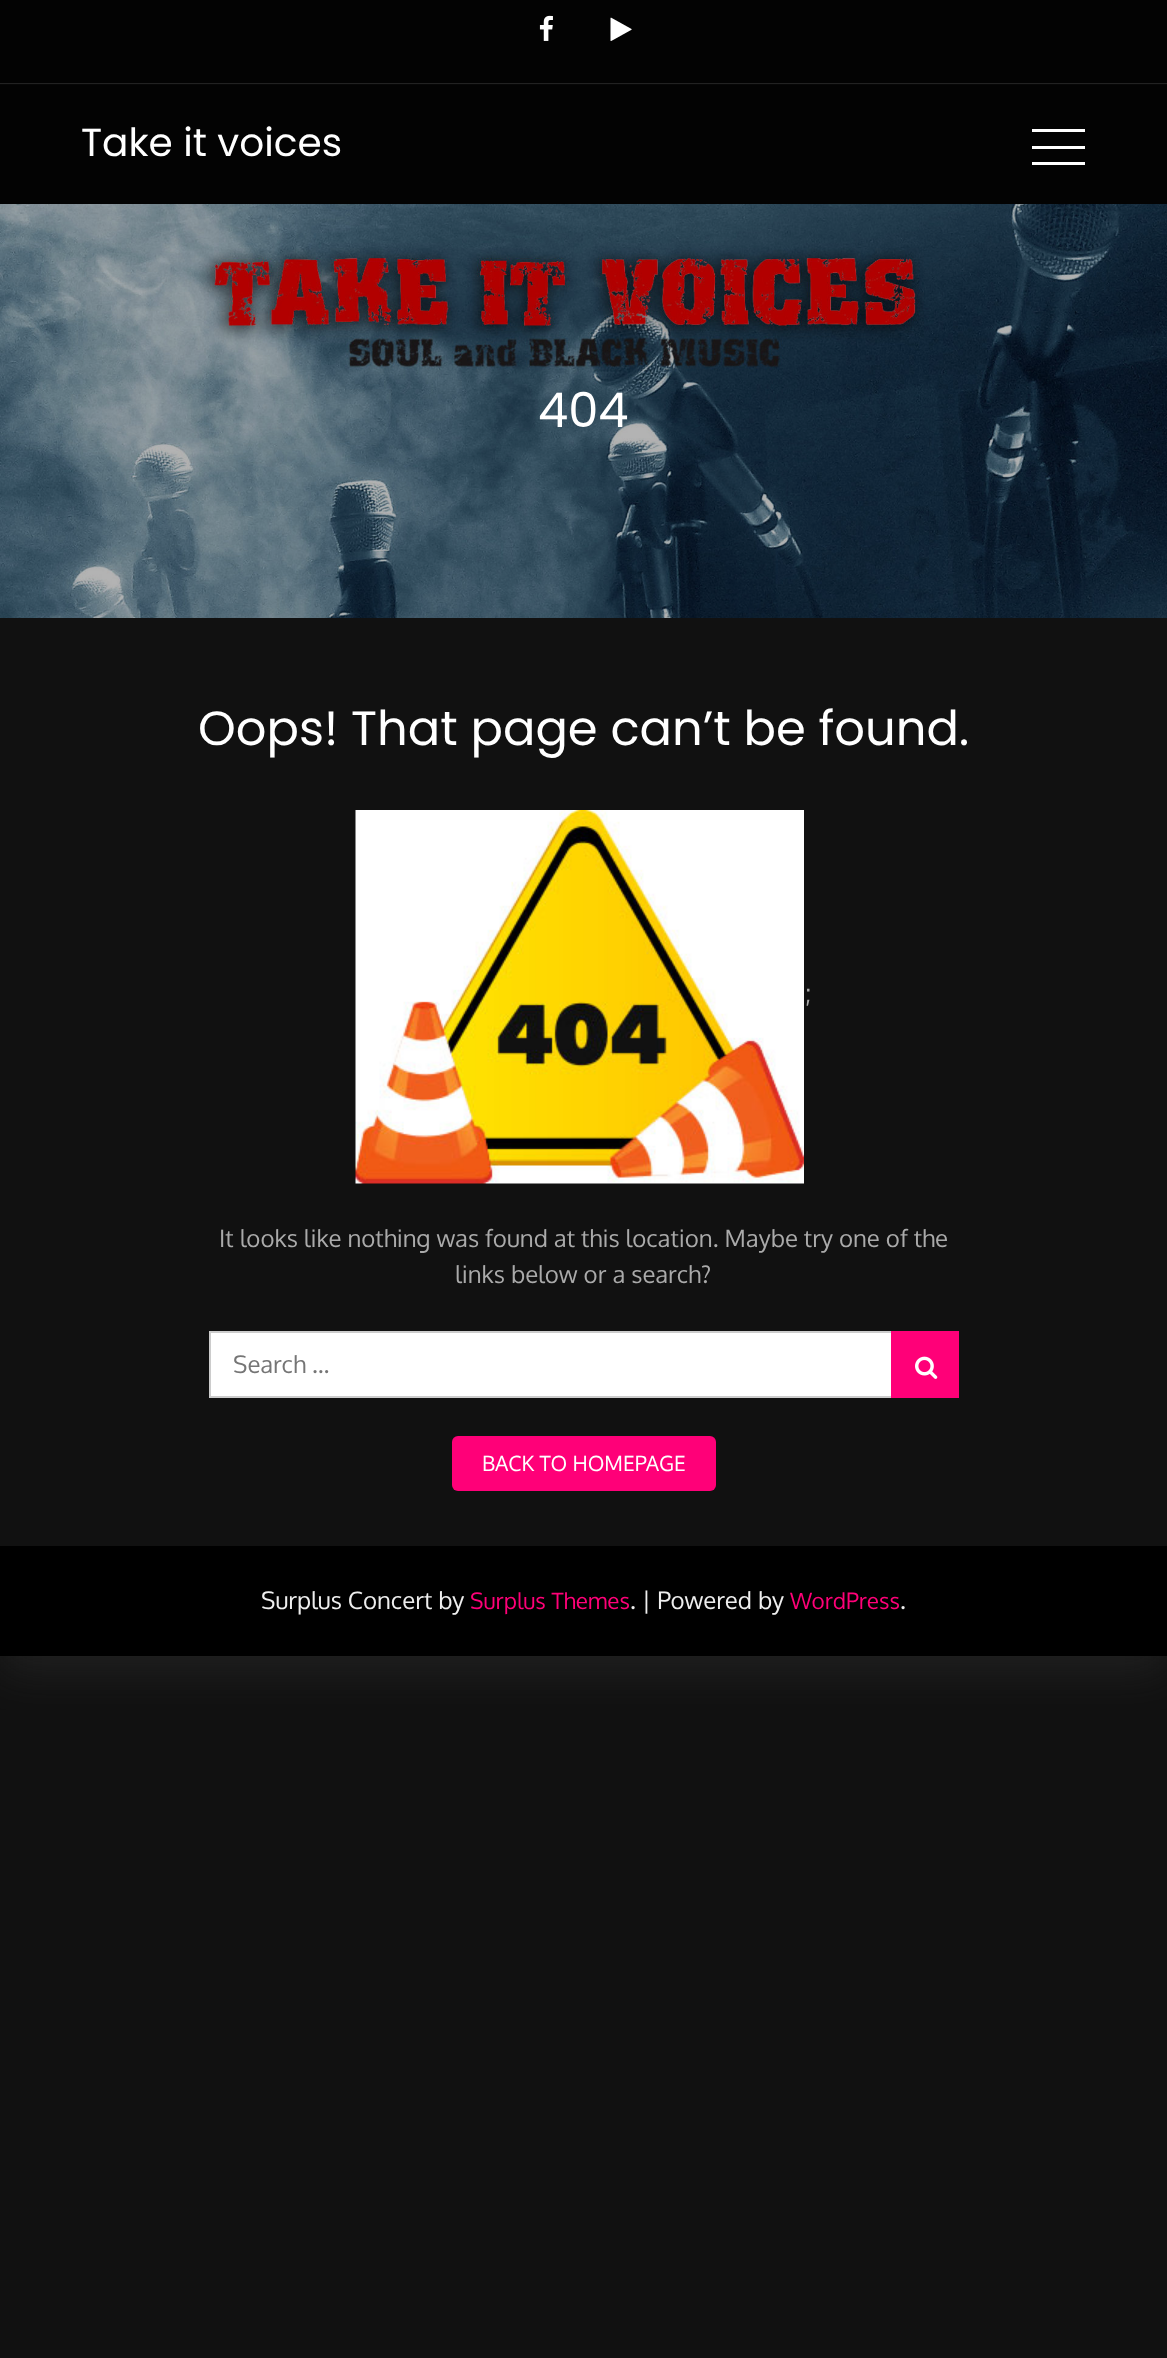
<svg xmlns="http://www.w3.org/2000/svg" xmlns:xlink="http://www.w3.org/1999/xlink" width="1167" height="2358" viewBox="0 0 1167 2358">
<style>
.cls-1{font:39px Poppins;fill:#ffffff}
.cls-2{font:48px Poppins;fill:#ffffff}
.cls-3{font:24px Oxygen;fill:#aaaaaa}
.cls-4{font:24px Oxygen;fill:#757575}
.cls-5{font:21px Oxygen;fill:#ffffff}
.cls-6{font:24px Oxygen;fill:#eeeeee}
.cls-7{font:22.5px Oxygen;fill:#ff0078}
</style>
<defs>
<clipPath id="clip1"><rect x="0" y="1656" width="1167" height="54"/></clipPath>
</defs>
<rect width="100%" height="100%" fill="#111111"/>
<rect fill="#030303" x="0" y="85" width="1167" height="119"/>
<g clip-path="url(#clip1)">
<rect fill="#333333" fill-opacity="0.47" filter="blur(22.5px)" x="0" y="15" width="1167" height="1656"/>
</g>
<rect fill="#030303" x="0" y="0" width="1167" height="83"/>
<rect fill="#222222" x="0" y="83" width="1167" height="1"/>
<rect fill="#070707" x="0" y="84" width="1167" height="1"/>
<image xlink:href="image0.png" x="539" y="15" width="14" height="26"/>
<image xlink:href="image1.png" x="610" y="17" width="22" height="24"/>
<rect fill="#ffffff" x="1032" y="129" width="53" height="3"/>
<rect fill="#ffffff" x="1032" y="146" width="53" height="3"/>
<rect fill="#ffffff" x="1032" y="162" width="53" height="3"/>
<image xlink:href="image2.png" x="0" y="204" width="1167" height="414"/>
<image xlink:href="image3.png" x="355" y="810" width="449" height="374"/>
<rect fill="#ffffff" x="211" y="1333" width="680" height="63"/>
<rect fill="none" stroke="#cccccc" stroke-width="2" x="210" y="1332" width="748" height="65"/>
<rect fill="#ff0078" x="891" y="1331" width="68" height="67"/>
<image xlink:href="image4.png" x="915" y="1356" width="23" height="23"/>
<rect fill="#ff0078" x="452" y="1436" width="264" height="55" rx="6"/>
<rect fill="#000000" x="0" y="1546" width="1167" height="110"/>
<text class="cls-1" x="81" y="156">Take it voices</text>
<text class="cls-2" x="538" y="427">404</text>
<text class="cls-2" x="198" y="745">Oops! That page can’t be found.</text>
<text class="cls-3" x="805" y="1002">;</text>
<text class="cls-3" x="219" y="1247">It looks like nothing was found at this location. Maybe try one of the</text>
<text class="cls-3" x="455" y="1283">links below or a search?</text>
<text class="cls-4" x="233" y="1373">Search …</text>
<text class="cls-5" x="482" y="1471">BACK TO HOMEPAGE</text>
<text class="cls-6" x="261" y="1609">Surplus Concert by</text>
<text class="cls-7" x="470" y="1609">Surplus Themes</text>
<text class="cls-6" x="630" y="1609">. | Powered by</text>
<text class="cls-7" x="790" y="1609">WordPress</text>
<text class="cls-6" x="900" y="1609">.</text>
</svg>
